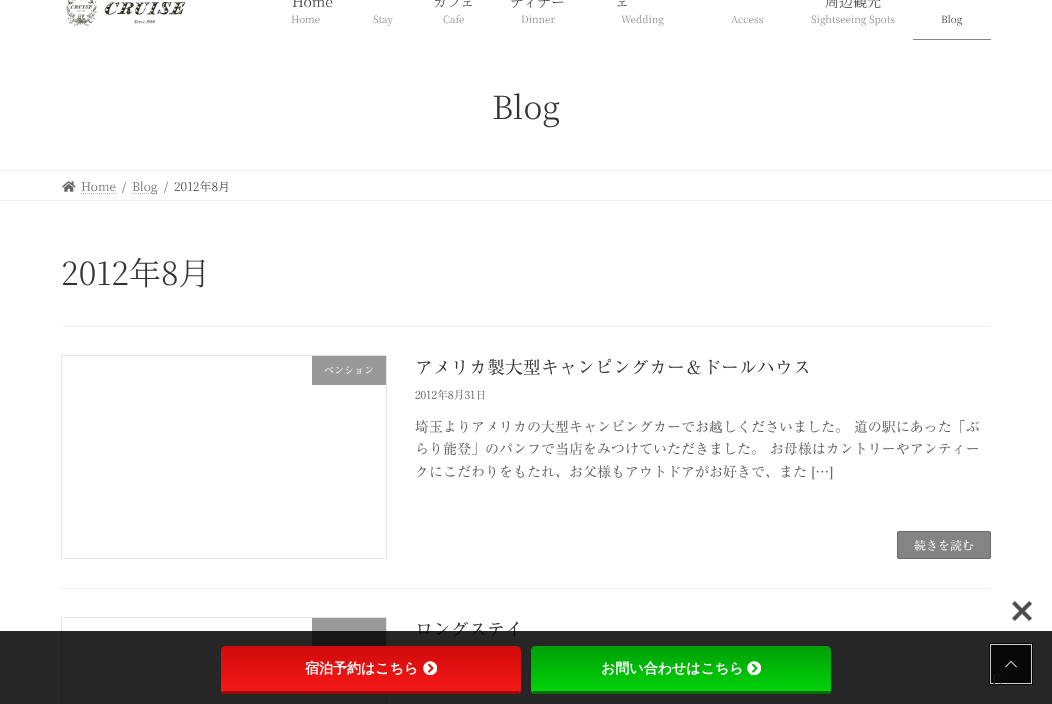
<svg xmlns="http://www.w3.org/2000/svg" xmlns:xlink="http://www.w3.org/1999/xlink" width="1052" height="704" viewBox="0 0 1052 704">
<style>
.cls-1{font:300 14px Noto Serif JP;fill:#333333}
.cls-2{font:300 10px Noto Serif JP;fill:#858585}
.cls-3{font:300 10px Noto Serif JP;fill:#333333}
.cls-4{font:300 32px Noto Serif JP;fill:#333333}
.cls-5{font:300 12px Noto Serif JP;fill:#666666}
.cls-6{font:300 12px Noto Serif JP;fill:#333333}
.cls-7{font:10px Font;fill:#ffffff}
.cls-8{font:18px Font;fill:#333333}
.cls-9{font:11px Font;fill:#666666}
.cls-10{font:14px Font;fill:#5c5c5c}
.cls-11{font:12px Font;fill:#ffffff}
.cls-12{font:bold 14px WenQuanYi Zen Hei;fill:#ffffff}
.cls-13{font:300 16px Noto Serif JP;fill:#1a1a1a}
</style>
<defs>
<clipPath id="clip1"><rect x="221" y="646" width="300" height="48" rx="4"/></clipPath>
<linearGradient id="g1" gradientUnits="userSpaceOnUse" x1="371" y1="646" x2="371" y2="691"><stop offset="0" stop-color="#d00a0a"/><stop offset="1" stop-color="#f41919"/></linearGradient>
<linearGradient id="g2" gradientUnits="userSpaceOnUse" x1="371" y1="691" x2="371" y2="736"><stop offset="0" stop-color="#d00a0a"/><stop offset="1" stop-color="#f41919"/></linearGradient>
<clipPath id="clip2"><rect x="531" y="646" width="300" height="48" rx="4"/></clipPath>
<linearGradient id="g3" gradientUnits="userSpaceOnUse" x1="681" y1="646" x2="681" y2="691"><stop offset="0" stop-color="#009f07"/><stop offset="1" stop-color="#00d209"/></linearGradient>
<linearGradient id="g4" gradientUnits="userSpaceOnUse" x1="681" y1="691" x2="681" y2="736"><stop offset="0" stop-color="#009f07"/><stop offset="1" stop-color="#00d209"/></linearGradient>
</defs>
<rect width="100%" height="100%" fill="#ffffff"/>
<image xlink:href="image0.png" x="66" y="0" width="120" height="26"/>
<rect fill="#848484" x="913" y="39" width="78" height="1"/>
<rect fill="#f0f0f0" x="0" y="170" width="1052" height="1"/>
<rect fill="#f0f0f0" x="0" y="200" width="1052" height="1"/>
<image xlink:href="image1.png" x="62" y="181" width="14" height="11"/>
<path fill="none" stroke="#b3b3b3" stroke-dasharray="1 1" d="M81 193.5H116"/>
<path fill="none" stroke="#b3b3b3" stroke-dasharray="1 1" d="M132 193.5H157.5"/>
<rect fill="#f0f0f0" x="61" y="326" width="930" height="1"/>
<rect fill="#f0f0f0" x="61" y="588" width="930" height="1"/>
<rect fill="none" stroke="#e5e5e5" x="61.5" y="355.5" width="325" height="203"/>
<rect fill="#999999" x="312" y="356" width="74" height="29"/>
<rect fill="#848484" stroke="#6a6a6a" x="897.5" y="531.5" width="93" height="27" rx="1.5"/>
<rect fill="none" stroke="#e5e5e5" x="61.5" y="617.5" width="325" height="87"/>
<rect fill="#999999" x="312" y="618" width="74" height="28"/>
<image xlink:href="image2.png" x="1012" y="600" width="20" height="21"/>
<text class="cls-1" x="292" y="7">Home</text>
<text class="cls-2" x="291" y="23">Home</text>
<text class="cls-2" x="373" y="23">Stay</text>
<text class="cls-1" x="433" y="7">カフェ</text>
<text class="cls-2" x="443" y="23">Cafe</text>
<text class="cls-1" x="510" y="7">ディナー</text>
<text class="cls-2" x="521" y="23">Dinner</text>
<text class="cls-1" x="615" y="7">ェ</text>
<text class="cls-2" x="621" y="23">Wedding</text>
<text class="cls-2" x="731" y="23">Access</text>
<text class="cls-1" x="825" y="7">周辺観光</text>
<text class="cls-2" x="811" y="23">Sightseeing Spots</text>
<text class="cls-3" x="941" y="23">Blog</text>
<text class="cls-4" x="492" y="119">Blog</text>
<text class="cls-5" x="81" y="191">Home</text>
<text class="cls-6" x="122" y="191">/</text>
<text class="cls-5" x="132" y="191">Blog</text>
<text class="cls-6" x="164" y="191">/</text>
<text class="cls-6" x="174" y="191">2012年8月</text>
<text class="cls-4" x="61" y="285">2012年8月</text>
<text class="cls-7" x="324" y="374">ペンション</text>
<text class="cls-8" x="415" y="374">アメリカ製大型キャンピングカー＆ドールハウス</text>
<text class="cls-9" x="415" y="399">2012年8月31日</text>
<text class="cls-10"><tspan x="415" y="432">埼玉よりアメリカの大型キャンピングカーでお越しくださいました。 道の駅にあった「ぶ</tspan><tspan x="415" y="454">らり能登」のパンフで当店をみつけていただきました。 お母様はカントリーやアンティー</tspan><tspan x="415" y="477">クにこだわりをもたれ、お父様もアウトドアがお好きで、また […]</tspan></text>
<text class="cls-11" x="914" y="550">続きを読む</text>
<text class="cls-8" x="415" y="636">ロングステイ</text>
<rect fill="#000000" fill-opacity="0.85" x="0" y="631" width="1052" height="73"/>
<g clip-path="url(#clip1)">
<path fill="url(#g1)" d="M225 646H517C519 646 521 648 521 650V691H221V650C221 648 223 646 225 646Z"/>
<rect fill="url(#g2)" x="221" y="691" width="300" height="3"/>
</g>
<rect fill="#9f0808" x="223" y="691" width="296" height="3"/>
<text class="cls-12" x="305" y="673">宿泊予約はこちら</text>
<image xlink:href="image3.png" x="423" y="661" width="14" height="14"/>
<g clip-path="url(#clip2)">
<path fill="url(#g3)" d="M535 646H827C829 646 831 648 831 650V691H531V650C531 648 533 646 535 646Z"/>
<rect fill="url(#g4)" x="531" y="691" width="300" height="3"/>
</g>
<rect fill="#006c05" x="533" y="691" width="296" height="3"/>
<text class="cls-12" x="601" y="673">お問い合わせはこちら</text>
<image xlink:href="image4.png" x="747" y="661" width="14" height="14"/>
<rect fill="none" stroke="#080808" stroke-width="2" x="990" y="644" width="42" height="40"/>
<rect fill="none" stroke="#cecece" x="990.5" y="644.5" width="41" height="39"/>
<rect fill="#080808" x="991" y="645" width="40" height="38"/>
<image xlink:href="image5.png" x="1005" y="661" width="12" height="7"/>
<text class="cls-13" x="991" y="686">E</text>
</svg>
